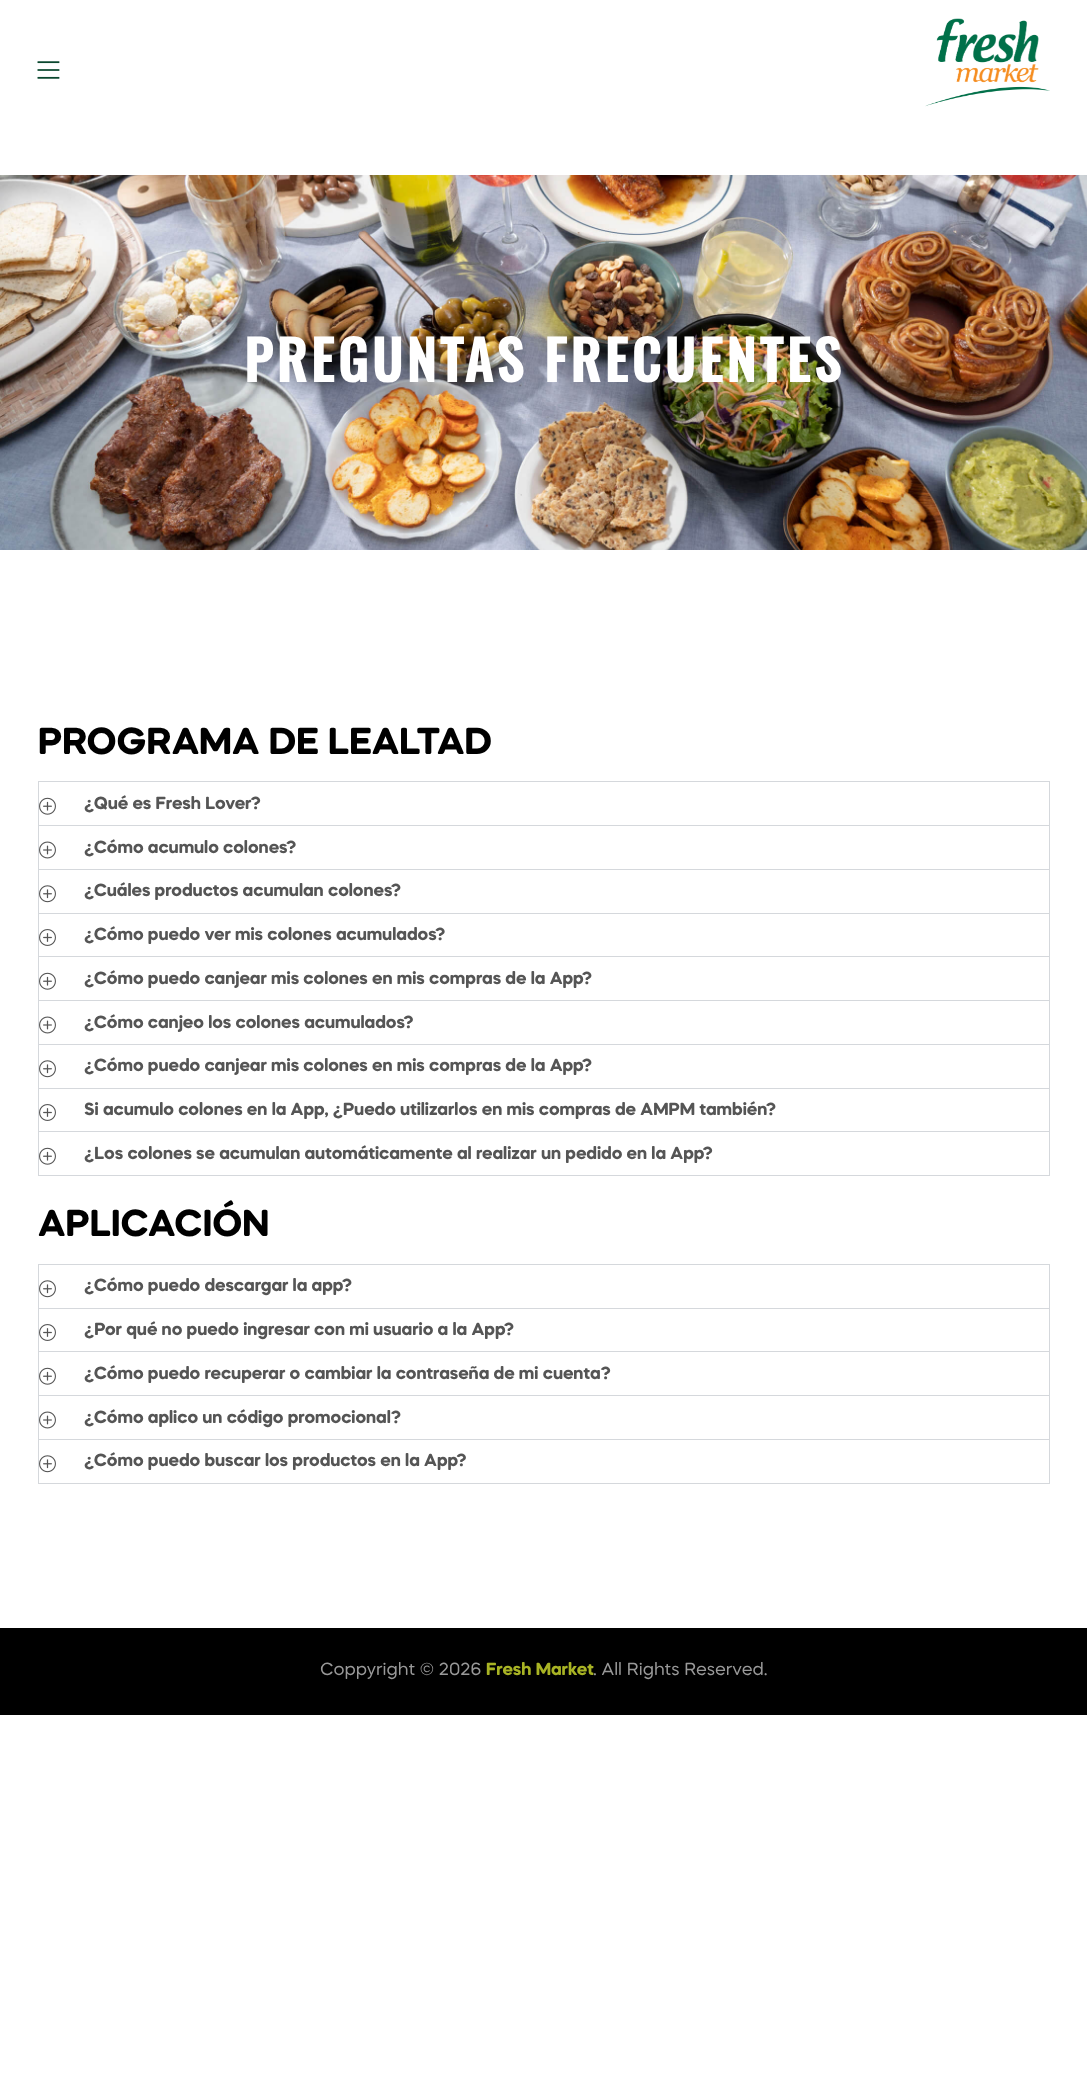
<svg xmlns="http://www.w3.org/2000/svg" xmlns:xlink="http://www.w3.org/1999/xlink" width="1087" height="2088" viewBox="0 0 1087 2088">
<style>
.cls-1{font:bold 54.4px Oswald;letter-spacing:3.75px;fill:#ffffff}
.cls-2{font:bold 37.5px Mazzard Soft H;fill:#000000}
.cls-3{font:bold 17.5px Mazzard Soft H;fill:#555555}
.cls-4{font:17.5px Mazzard Soft H;fill:#999999}
.cls-5{font:bold 17.5px Mazzard Soft H;fill:#a8b324}
</style>
<rect width="100%" height="100%" fill="#ffffff"/>
<image xlink:href="image0.png" x="37" y="61" width="23" height="18"/>
<image xlink:href="image1.png" x="925" y="18" width="125" height="89"/>
<image xlink:href="image2.png" x="0" y="175" width="1087" height="375"/>
<rect fill="none" stroke="#d5d8dc" x="38.5" y="781.5" width="1011" height="44"/>
<image xlink:href="image3.png" x="39" y="797" width="17" height="18"/>
<rect fill="#d5d8dc" x="1049" y="826" width="1" height="350"/>
<rect fill="#d5d8dc" x="38" y="869" width="1012" height="1"/>
<rect fill="#d5d8dc" x="38" y="826" width="1" height="44"/>
<image xlink:href="image4.png" x="39" y="841" width="17" height="18"/>
<rect fill="#d5d8dc" x="38" y="913" width="1012" height="1"/>
<rect fill="#d5d8dc" x="38" y="870" width="1" height="44"/>
<image xlink:href="image5.png" x="39" y="885" width="17" height="18"/>
<rect fill="#d5d8dc" x="38" y="956" width="1012" height="1"/>
<rect fill="#d5d8dc" x="38" y="914" width="1" height="44"/>
<image xlink:href="image6.png" x="39" y="929" width="17" height="17"/>
<rect fill="#d5d8dc" x="38" y="1000" width="1012" height="1"/>
<rect fill="#d5d8dc" x="38" y="958" width="1" height="43"/>
<image xlink:href="image3.png" x="39" y="972" width="17" height="18"/>
<rect fill="#d5d8dc" x="38" y="1044" width="1012" height="1"/>
<rect fill="#d5d8dc" x="38" y="1001" width="1" height="44"/>
<image xlink:href="image4.png" x="39" y="1016" width="17" height="18"/>
<rect fill="#d5d8dc" x="38" y="1088" width="1012" height="1"/>
<rect fill="#d5d8dc" x="38" y="1045" width="1" height="44"/>
<image xlink:href="image5.png" x="39" y="1060" width="17" height="18"/>
<rect fill="#d5d8dc" x="38" y="1131" width="1012" height="1"/>
<rect fill="#d5d8dc" x="38" y="1089" width="1" height="44"/>
<image xlink:href="image6.png" x="39" y="1104" width="17" height="17"/>
<rect fill="#d5d8dc" x="38" y="1175" width="1012" height="1"/>
<rect fill="#d5d8dc" x="38" y="1133" width="1" height="43"/>
<image xlink:href="image3.png" x="39" y="1147" width="17" height="18"/>
<rect fill="none" stroke="#d5d8dc" x="38.5" y="1264.5" width="1011" height="44"/>
<image xlink:href="image5.png" x="39" y="1280" width="17" height="18"/>
<rect fill="#d5d8dc" x="1049" y="1309" width="1" height="175"/>
<rect fill="#d5d8dc" x="38" y="1351" width="1012" height="1"/>
<rect fill="#d5d8dc" x="38" y="1309" width="1" height="44"/>
<image xlink:href="image6.png" x="39" y="1324" width="17" height="17"/>
<rect fill="#d5d8dc" x="38" y="1395" width="1012" height="1"/>
<rect fill="#d5d8dc" x="38" y="1353" width="1" height="43"/>
<image xlink:href="image3.png" x="39" y="1367" width="17" height="18"/>
<rect fill="#d5d8dc" x="38" y="1439" width="1012" height="1"/>
<rect fill="#d5d8dc" x="38" y="1396" width="1" height="44"/>
<image xlink:href="image4.png" x="39" y="1411" width="17" height="18"/>
<rect fill="#d5d8dc" x="38" y="1483" width="1012" height="1"/>
<rect fill="#d5d8dc" x="38" y="1440" width="1" height="44"/>
<image xlink:href="image5.png" x="39" y="1455" width="17" height="18"/>
<rect fill="#000000" x="0" y="1628" width="1087" height="87"/>
<text class="cls-1" x="244" y="382">PREGUNTAS FRECUENTES</text>
<text class="cls-2" x="38" y="754">PROGRAMA DE LEALTAD</text>
<text class="cls-3" x="84" y="809">¿Qué es Fresh Lover?</text>
<text class="cls-3" x="84" y="853">¿Cómo acumulo colones?</text>
<text class="cls-3" x="84" y="896">¿Cuáles productos acumulan colones?</text>
<text class="cls-3" x="84" y="940">¿Cómo puedo ver mis colones acumulados?</text>
<text class="cls-3" x="84" y="984">¿Cómo puedo canjear mis colones en mis compras de la App?</text>
<text class="cls-3" x="84" y="1028">¿Cómo canjeo los colones acumulados?</text>
<text class="cls-3" x="84" y="1071">¿Cómo puedo canjear mis colones en mis compras de la App?</text>
<text class="cls-3" x="84" y="1115">Si acumulo colones en la App, ¿Puedo utilizarlos en mis compras de AMPM también?</text>
<text class="cls-3" x="84" y="1159">¿Los colones se acumulan automáticamente al realizar un pedido en la App?</text>
<text class="cls-2" x="38" y="1236">APLICACIÓN</text>
<text class="cls-3" x="84" y="1291">¿Cómo puedo descargar la app?</text>
<text class="cls-3" x="84" y="1335">¿Por qué no puedo ingresar con mi usuario a la App?</text>
<text class="cls-3" x="84" y="1379">¿Cómo puedo recuperar o cambiar la contraseña de mi cuenta?</text>
<text class="cls-3" x="84" y="1423">¿Cómo aplico un código promocional?</text>
<text class="cls-3" x="84" y="1466">¿Cómo puedo buscar los productos en la App?</text>
<text class="cls-4" x="320" y="1675">Coppyright © 2026</text>
<text class="cls-5" x="486" y="1675">Fresh Market</text>
<text class="cls-4" x="593" y="1675">. All Rights Reserved.</text>
</svg>
